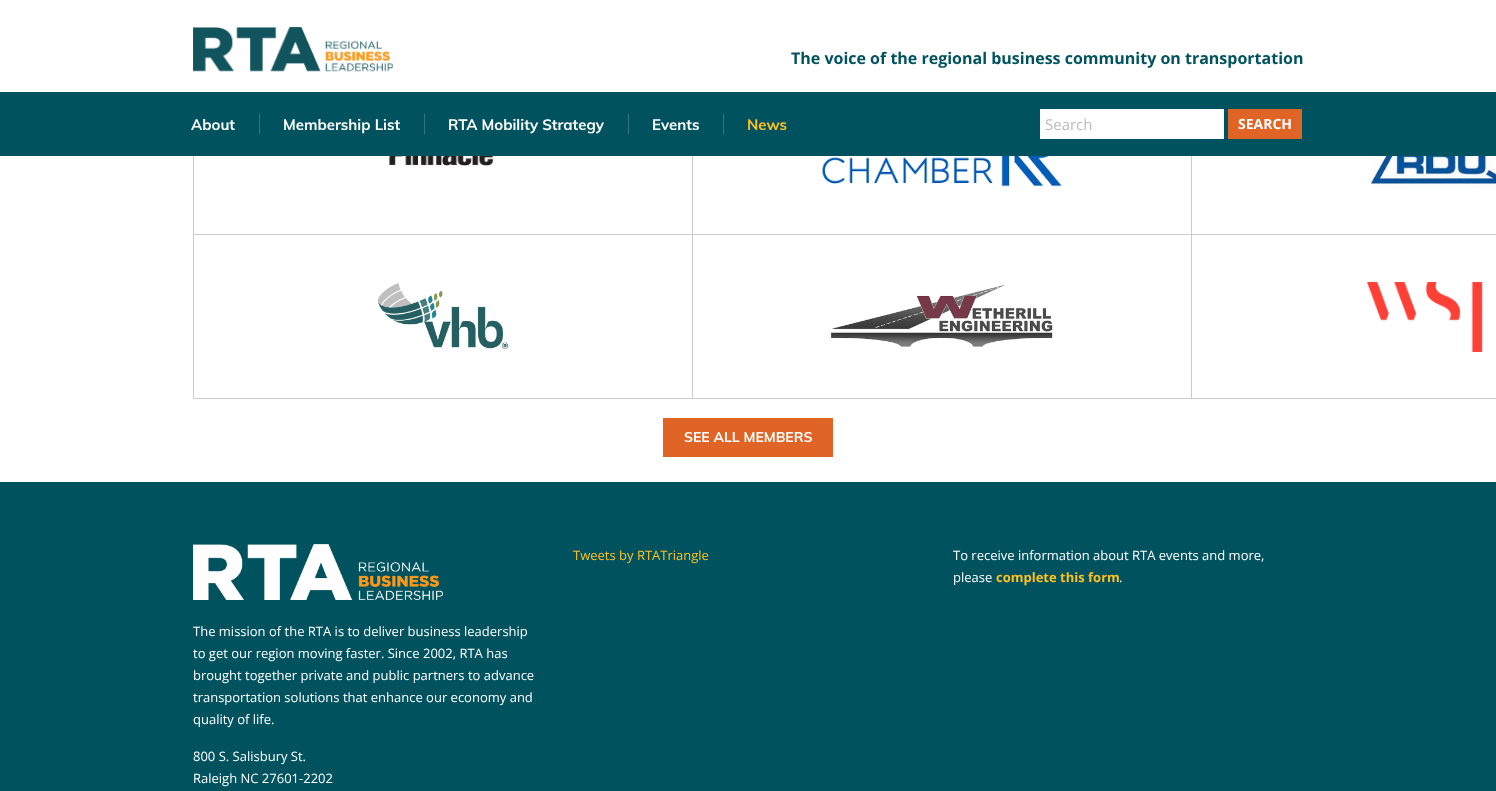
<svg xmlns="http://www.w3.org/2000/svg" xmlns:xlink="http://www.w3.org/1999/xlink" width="1496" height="791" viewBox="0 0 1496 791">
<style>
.cls-1{font:bold 16px Open Sans;fill:#00535e}
.cls-2{font:bold 15px Muli;fill:#ffffff}
.cls-3{font:bold 15px Muli;fill:#ffc022}
.cls-4{font:15px Open Sans;fill:#bbbbbb}
.cls-5{font:bold 14px Open Sans;fill:#ffffff}
.cls-6{font:bold 14px Muli;fill:#ffffff}
.cls-7{font:13px Open Sans;fill:#ffc022}
.cls-8{font:13px Open Sans;fill:#ffffff}
.cls-9{font:bold 13px Open Sans;fill:#ffc022}
</style>
<rect width="100%" height="100%" fill="#ffffff"/>
<rect fill="none" stroke="#cccccc" x="193.5" y="70.5" width="499" height="164"/>
<rect fill="none" stroke="#cccccc" x="692.5" y="70.5" width="499" height="164"/>
<rect fill="none" stroke="#cccccc" x="1191.5" y="70.5" width="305" height="164"/>
<rect fill="#ffffff" x="193" y="70" width="1303" height="22"/>
<image xlink:href="image0.png" x="193" y="27" width="200" height="45"/>
<rect fill="#00535e" x="0" y="92" width="1496" height="64"/>
<rect fill="#33757e" x="259" y="114" width="1" height="20"/>
<rect fill="#33757e" x="424" y="114" width="1" height="20"/>
<rect fill="#33757e" x="628" y="114" width="1" height="20"/>
<rect fill="#33757e" x="723" y="114" width="1" height="20"/>
<rect fill="#ffffff" x="1040" y="109" width="184" height="30"/>
<rect fill="#df6426" x="1228" y="109" width="74" height="30"/>
<image xlink:href="image1.png" x="389" y="156" width="108" height="10"/>
<image xlink:href="image2.png" x="822" y="156" width="240" height="32"/>
<image xlink:href="image3.png" x="1371" y="156" width="125" height="32"/>
<rect fill="none" stroke="#cccccc" x="193.5" y="234.5" width="499" height="164"/>
<image xlink:href="image4.png" x="377" y="283" width="132" height="66"/>
<rect fill="none" stroke="#cccccc" x="692.5" y="234.5" width="499" height="164"/>
<image xlink:href="image5.png" x="830" y="285" width="223" height="62"/>
<rect fill="none" stroke="#cccccc" x="1191.5" y="234.5" width="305" height="164"/>
<image xlink:href="image6.png" x="1367" y="282" width="116" height="70"/>
<rect fill="#df6426" x="663" y="418" width="170" height="39"/>
<rect fill="#00535e" x="0" y="482" width="1496" height="309"/>
<image xlink:href="image7.png" x="193" y="544" width="250" height="56"/>
<text class="cls-1" x="791" y="64">The voice of the regional business community on transportation</text>
<text class="cls-2" x="191" y="130">About</text>
<text class="cls-2" x="283" y="130">Membership List</text>
<text class="cls-2" x="448" y="130">RTA Mobility Strategy</text>
<text class="cls-2" x="652" y="130">Events</text>
<text class="cls-3" x="747" y="130">News</text>
<text class="cls-4" x="1045" y="130">Search</text>
<text class="cls-5" x="1238" y="129">SEARCH</text>
<text class="cls-6" x="684" y="442">SEE ALL MEMBERS</text>
<text class="cls-7" x="573" y="560">Tweets by RTATriangle</text>
<text class="cls-8"><tspan x="953" y="560">To receive information about RTA events and more,</tspan><tspan x="953" y="582">please</tspan></text>
<text class="cls-9" x="996" y="582">complete this form</text>
<text class="cls-8" x="1119" y="582">.</text>
<text class="cls-8"><tspan x="193" y="636">The mission of the RTA is to deliver business leadership</tspan><tspan x="193" y="658">to get our region moving faster. Since 2002, RTA has</tspan><tspan x="193" y="680">brought together private and public partners to advance</tspan><tspan x="193" y="702">transportation solutions that enhance our economy and</tspan><tspan x="193" y="724">quality of life.</tspan></text>
<text class="cls-8"><tspan x="193" y="761">800 S. Salisbury St.</tspan><tspan x="193" y="783">Raleigh NC 27601-2202</tspan></text>
</svg>
